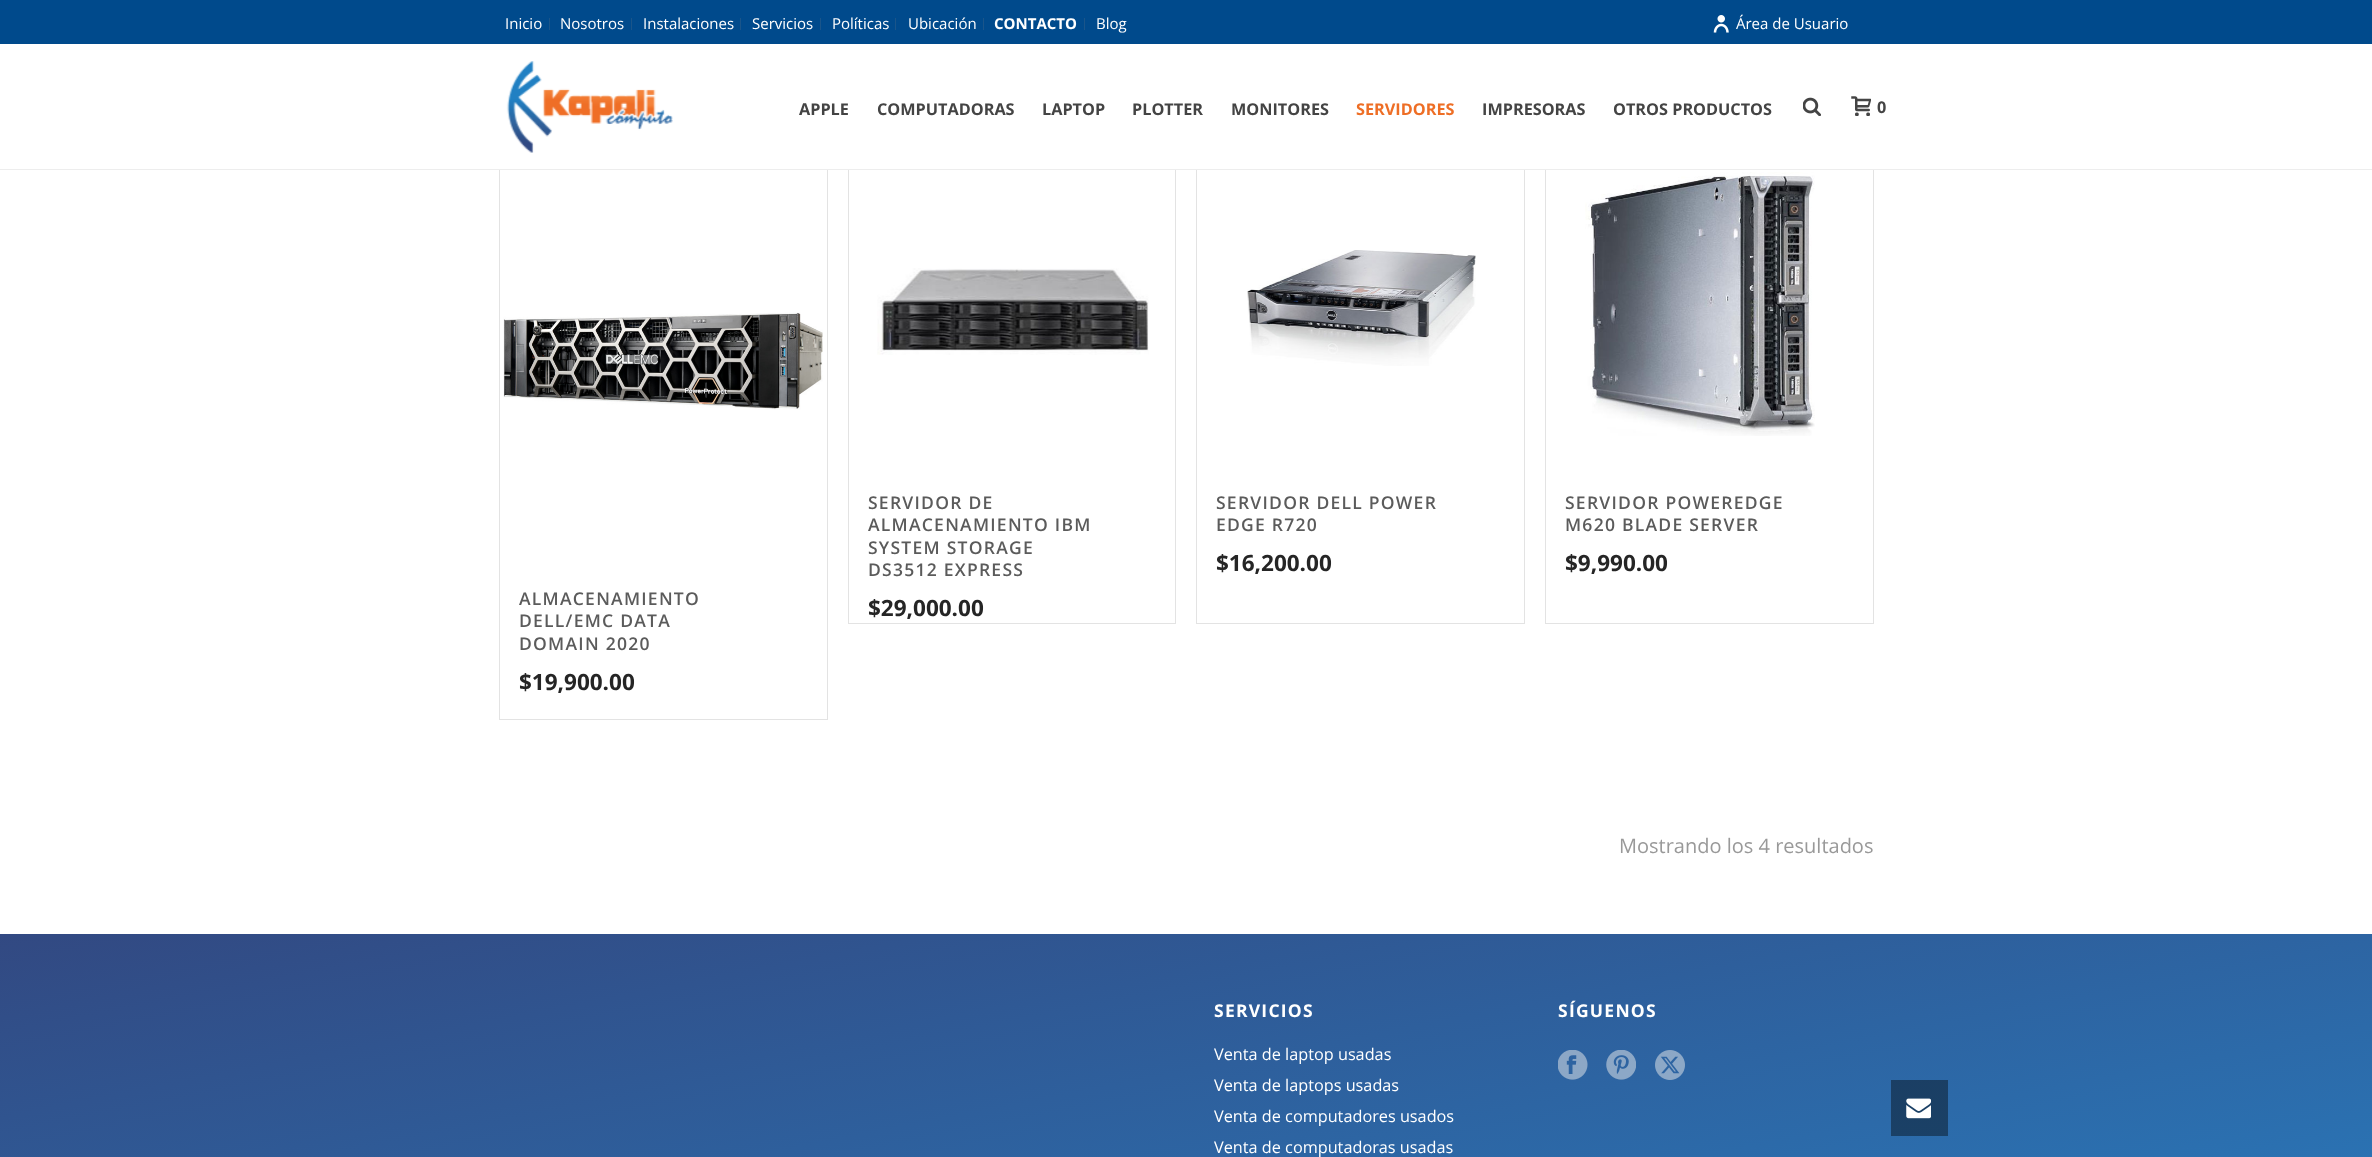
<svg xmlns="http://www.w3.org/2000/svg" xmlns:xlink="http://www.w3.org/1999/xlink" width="2372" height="1157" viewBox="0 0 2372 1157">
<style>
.cls-1{font:15px Open Sans;fill:#ffffff}
.cls-2{font:bold 15px Open Sans;fill:#ffffff}
.cls-3{font:bold 16.25px Open Sans;fill:#444444}
.cls-4{font:bold 16.25px Open Sans;fill:#ee6e25}
.cls-5{font:600 17.5px Open Sans;letter-spacing:1.25px;fill:#5b5b5b}
.cls-6{font:bold 22.5px Open Sans;fill:#252525}
.cls-7{font:20px Open Sans;fill:#999999}
.cls-8{font:bold 17.5px Open Sans;letter-spacing:1.25px;fill:#ffffff}
.cls-9{font:16.25px Open Sans;fill:#ffffff}
</style>
<defs>
<linearGradient id="g1" gradientUnits="userSpaceOnUse" x1="1099" y1="719" x2="1273" y2="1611"><stop offset="0" stop-color="#324982"/><stop offset="1" stop-color="#2880c3"/></linearGradient>
<linearGradient id="g2" gradientUnits="userSpaceOnUse" x1="1099" y1="719" x2="1273" y2="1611"><stop offset="0" stop-color="#1e2c4e"/><stop offset="1" stop-color="#184d75"/></linearGradient>
</defs>
<rect width="100%" height="100%" fill="#ffffff"/>
<rect fill="#004a8c" x="0" y="0" width="2372" height="44"/>
<rect fill="#1a558a" x="549" y="18" width="1" height="12"/>
<rect fill="#1a558a" x="631" y="18" width="1" height="12"/>
<rect fill="#1a558a" x="740" y="18" width="1" height="12"/>
<rect fill="#1a558a" x="820" y="18" width="1" height="12"/>
<rect fill="#1a558a" x="895" y="18" width="1" height="12"/>
<rect fill="#1a558a" x="983" y="18" width="1" height="12"/>
<rect fill="#1a558a" x="1084" y="18" width="1" height="12"/>
<image xlink:href="image0.png" x="1713" y="15" width="16" height="18"/>
<rect fill="none" stroke="#e3e3e3" x="848.5" y="145.5" width="327" height="478"/>
<rect fill="none" stroke="#e3e3e3" x="1196.5" y="145.5" width="328" height="478"/>
<rect fill="none" stroke="#e3e3e3" x="1545.5" y="145.5" width="328" height="478"/>
<rect fill="none" stroke="#e3e3e3" x="499.5" y="145.5" width="328" height="574"/>
<rect fill="#ededed" x="0" y="169" width="2372" height="1"/>
<rect fill="#ffffff" x="499" y="145" width="1375" height="24"/>
<image xlink:href="image1.png" x="506" y="61" width="167" height="92"/>
<image xlink:href="image2.png" x="1803" y="97" width="18" height="19"/>
<image xlink:href="image3.png" x="1851" y="96" width="20" height="20"/>
<image xlink:href="image4.png" x="877" y="268" width="272" height="87"/>
<image xlink:href="image5.png" x="1247" y="250" width="229" height="116"/>
<image xlink:href="image6.png" x="1585" y="172" width="230" height="264"/>
<image xlink:href="image7.png" x="503" y="312" width="320" height="98"/>
<rect fill="url(#g1)" x="0" y="934" width="2372" height="223"/>
<rect fill="url(#g2)" x="1891" y="1080" width="57" height="56"/>
<image xlink:href="image8.png" x="1558" y="1050" width="30" height="30"/>
<image xlink:href="image9.png" x="1606" y="1050" width="30" height="30"/>
<image xlink:href="image10.png" x="1655" y="1050" width="30" height="30"/>
<image xlink:href="image11.png" x="1906" y="1098" width="25" height="21"/>
<text class="cls-1" x="505" y="29">Inicio</text>
<text class="cls-1" x="560" y="29">Nosotros</text>
<text class="cls-1" x="643" y="29">Instalaciones</text>
<text class="cls-1" x="752" y="29">Servicios</text>
<text class="cls-1" x="832" y="29">Políticas</text>
<text class="cls-1" x="908" y="29">Ubicación</text>
<text class="cls-2" x="994" y="29">CONTACTO</text>
<text class="cls-1" x="1096" y="29">Blog</text>
<text class="cls-1" x="1736" y="29">Área de Usuario</text>
<text class="cls-3" x="799" y="115">APPLE</text>
<text class="cls-3" x="877" y="115">COMPUTADORAS</text>
<text class="cls-3" x="1042" y="115">LAPTOP</text>
<text class="cls-3" x="1132" y="115">PLOTTER</text>
<text class="cls-3" x="1231" y="115">MONITORES</text>
<text class="cls-4" x="1356" y="115">SERVIDORES</text>
<text class="cls-3" x="1482" y="115">IMPRESORAS</text>
<text class="cls-3" x="1613" y="115">OTROS PRODUCTOS</text>
<text class="cls-3" x="1877" y="113">0</text>
<text class="cls-5"><tspan x="868" y="509">SERVIDOR DE</tspan><tspan x="868" y="531">ALMACENAMIENTO IBM</tspan><tspan x="868" y="554">SYSTEM STORAGE</tspan><tspan x="868" y="576">DS3512 EXPRESS</tspan></text>
<text class="cls-6" x="868" y="616">$29,000.00</text>
<text class="cls-5"><tspan x="1216" y="509">SERVIDOR DELL POWER</tspan><tspan x="1216" y="531">EDGE R720</tspan></text>
<text class="cls-6" x="1216" y="571">$16,200.00</text>
<text class="cls-5"><tspan x="1565" y="509">SERVIDOR POWEREDGE</tspan><tspan x="1565" y="531">M620 BLADE SERVER</tspan></text>
<text class="cls-6" x="1565" y="571">$9,990.00</text>
<text class="cls-5"><tspan x="519" y="605">ALMACENAMIENTO</tspan><tspan x="519" y="627">DELL/EMC DATA</tspan><tspan x="519" y="650">DOMAIN 2020</tspan></text>
<text class="cls-6" x="519" y="690">$19,900.00</text>
<text class="cls-7" x="1619" y="853">Mostrando los 4 resultados</text>
<text class="cls-8" x="1214" y="1017">SERVICIOS</text>
<text class="cls-9"><tspan x="1214" y="1060">Venta de laptop usadas</tspan><tspan x="1214" y="1091">Venta de laptops usadas</tspan><tspan x="1214" y="1122">Venta de computadores usados</tspan><tspan x="1214" y="1153">Venta de computadoras usadas</tspan></text>
<text class="cls-8" x="1558" y="1017">SÍGUENOS</text>
</svg>
